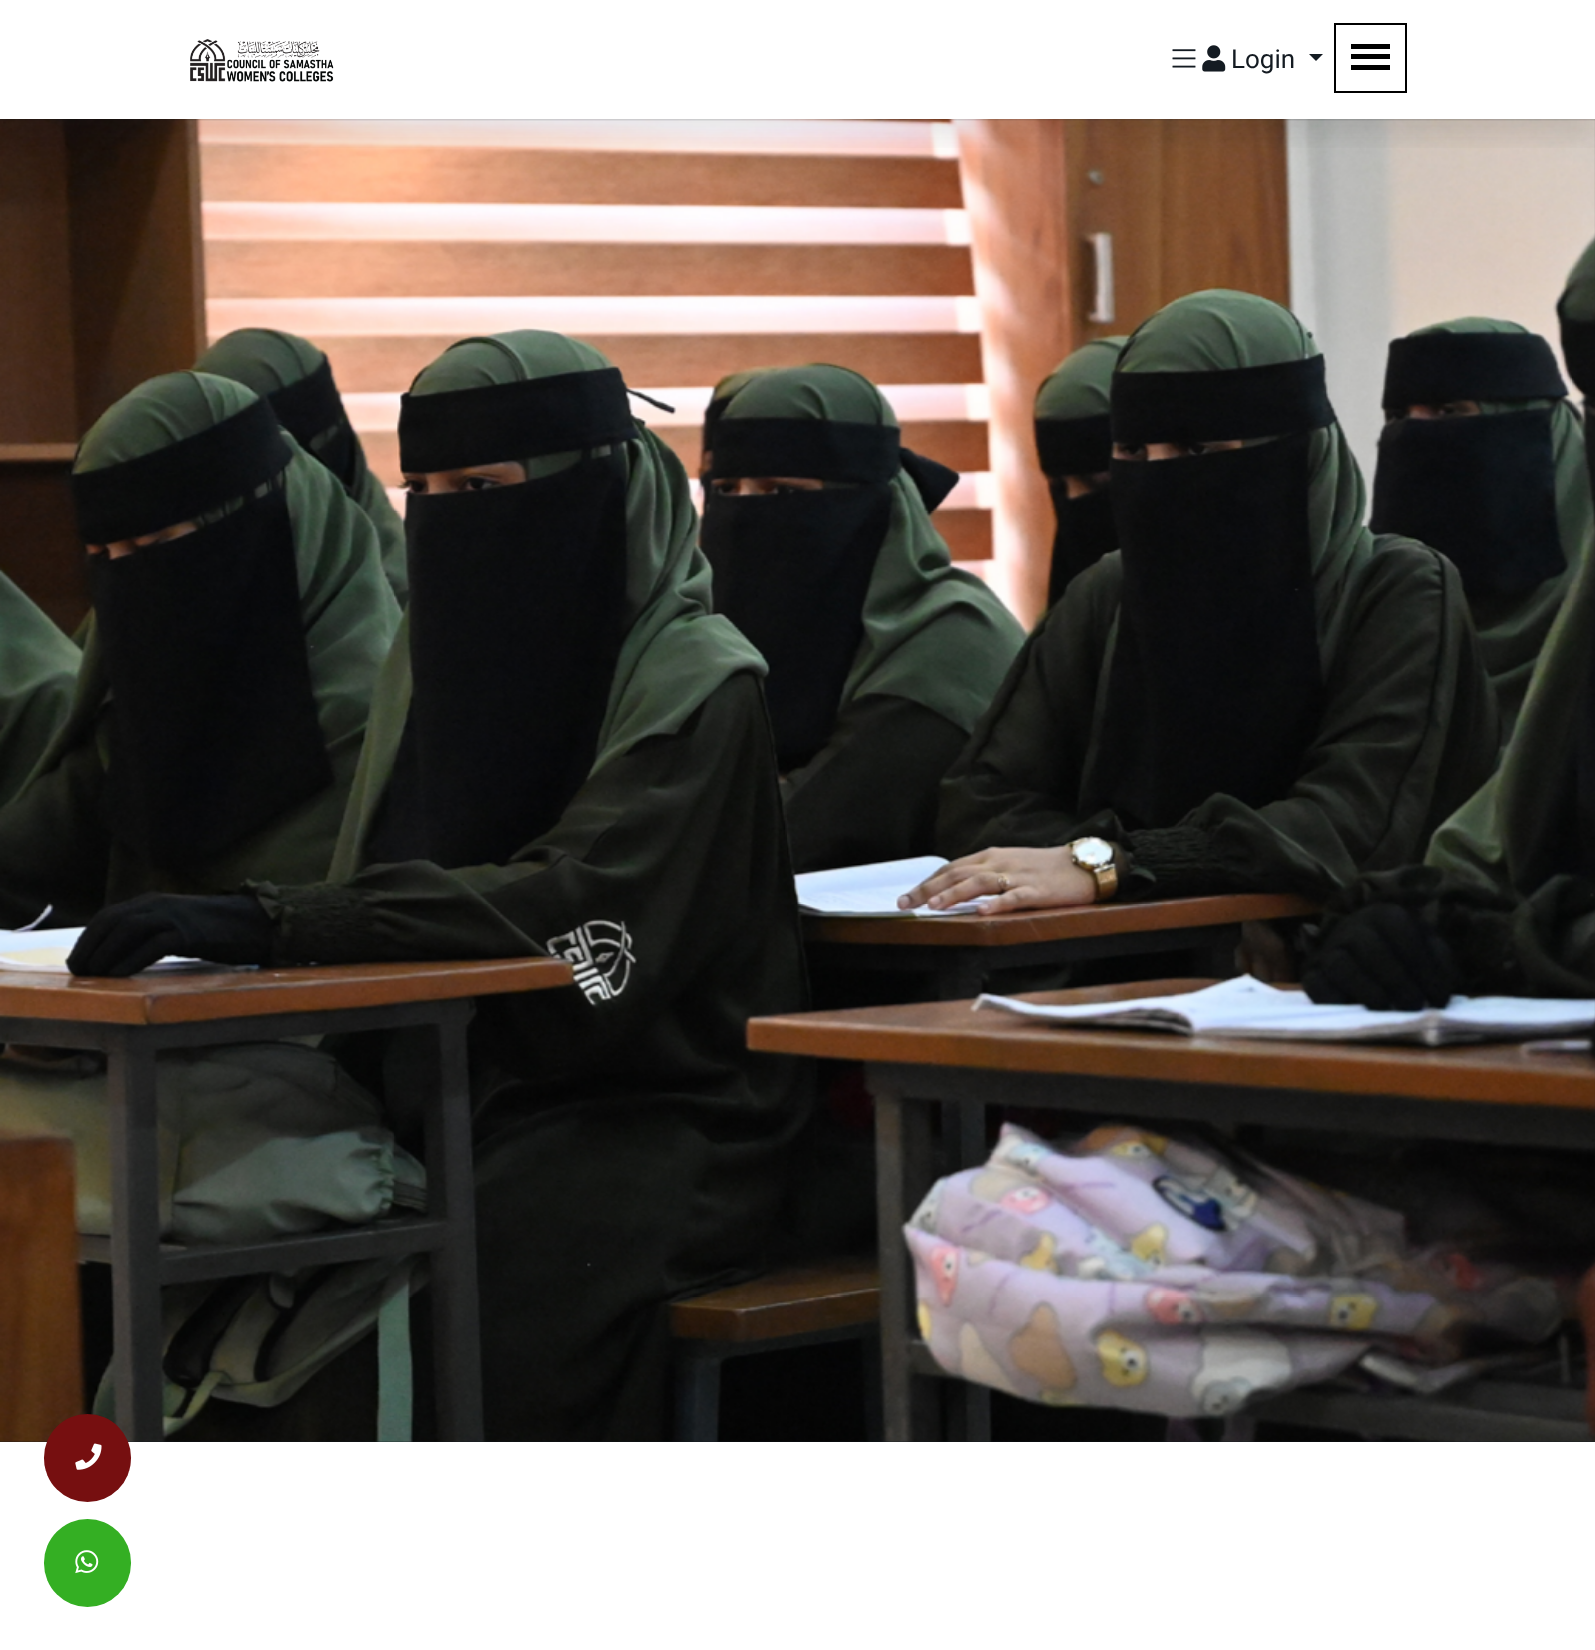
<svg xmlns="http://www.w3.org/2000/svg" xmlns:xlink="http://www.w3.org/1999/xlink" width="1595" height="1650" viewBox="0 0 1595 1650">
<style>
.cls-1{font:26px Roboto;fill:#141b22}
</style>
<defs>
<clipPath id="clip1"><rect x="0" y="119" width="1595" height="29"/></clipPath>
</defs>
<rect width="100%" height="100%" fill="#ffffff"/>
<rect fill="#141b22" x="0" y="119" width="1595" height="1323"/>
<image xlink:href="image3.png" x="0" y="119" width="1595" height="1323"/>
<g clip-path="url(#clip1)">
<rect fill="#191919" fill-opacity="0.1" filter="blur(13px)" x="0" y="18" width="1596" height="119"/>
</g>
<image xlink:href="image0.png" x="190" y="39" width="144" height="43"/>
<image xlink:href="image1.png" x="1172" y="49" width="24" height="19"/>
<image xlink:href="image2.png" x="1202" y="45" width="24" height="27"/>
<path fill="#141b22" d="M1309 54H1323L1316 61Z"/>
<rect fill="none" stroke="#000000" stroke-width="2" x="1335" y="24" width="71" height="68"/>
<rect fill="#000000" x="1351" y="44" width="39" height="5"/>
<rect fill="#000000" x="1351" y="54" width="39" height="5"/>
<rect fill="#000000" x="1351" y="65" width="39" height="5"/>
<rect fill="#760f10" x="44" y="1414" width="87" height="88" rx="43.5"/>
<image xlink:href="image4.png" x="75" y="1443" width="27" height="27"/>
<rect fill="#34af23" x="44" y="1519" width="87" height="88" rx="43.5"/>
<image xlink:href="image5.png" x="75" y="1550" width="24" height="24"/>
<text class="cls-1" x="1231" y="68">Login</text>
</svg>
